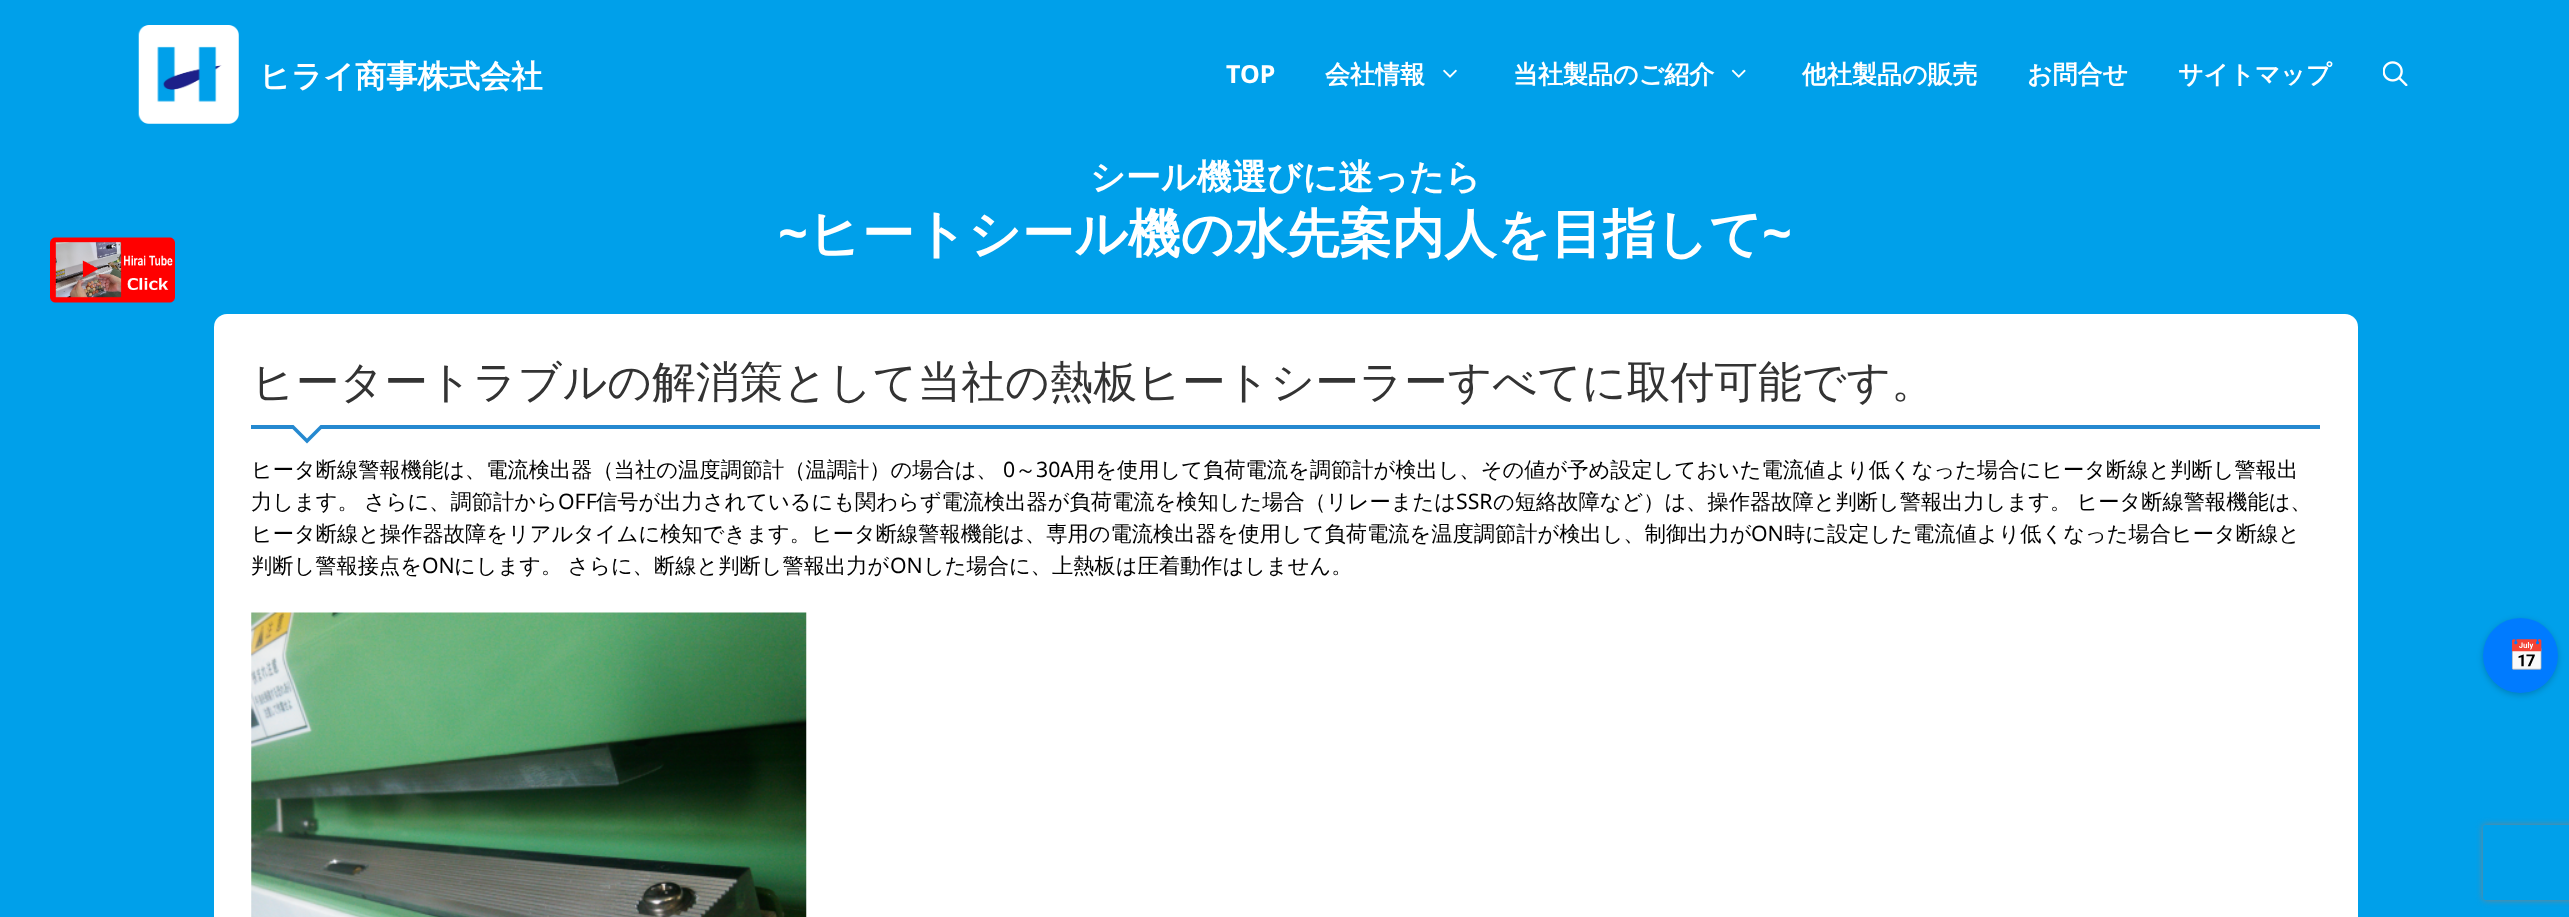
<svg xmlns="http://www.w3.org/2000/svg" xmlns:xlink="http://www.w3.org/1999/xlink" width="2569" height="917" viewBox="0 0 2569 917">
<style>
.cls-1{font:bold 31.25px WenQuanYi Zen Hei;fill:#ffffff}
.cls-2{font:bold 25px Noto Sans;fill:#ffffff}
.cls-3{font:bold 25px WenQuanYi Zen Hei;fill:#ffffff}
.cls-4{font:bold 35px WenQuanYi Zen Hei;fill:#ffffff}
.cls-5{font:bold 52.5px Noto Sans;fill:#ffffff}
.cls-6{font:bold 52.5px WenQuanYi Zen Hei;fill:#ffffff}
.cls-7{font:500 43.75px WenQuanYi Zen Hei;fill:#333333}
.cls-8{font:500 21.25px WenQuanYi Zen Hei;fill:#000000}
.cls-9{font:21.25px Noto Sans;fill:#000000}
.cls-10{font:30px Noto Color Emoji;fill:#ffffff}
</style>
<defs>
<clipPath id="clip1"><path d="M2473 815H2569V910H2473ZM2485.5 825H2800.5C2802 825 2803 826 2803 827.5V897.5C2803 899 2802 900 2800.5 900H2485.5C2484 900 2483 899 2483 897.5V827.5C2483 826 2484 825 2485.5 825Z" clip-rule="evenodd"/></clipPath>
</defs>
<rect width="100%" height="100%" fill="#00a0ea"/>
<image xlink:href="image0.png" x="138" y="25" width="101" height="99"/>
<image xlink:href="image1.png" x="1443" y="69" width="14" height="9"/>
<image xlink:href="image2.png" x="1731" y="69" width="15" height="9"/>
<image xlink:href="image3.png" x="2383" y="61" width="25" height="25"/>
<image xlink:href="image4.png" x="50" y="237" width="125" height="66"/>
<rect fill="#ffffff" x="214" y="314" width="2144" height="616" rx="13"/>
<rect fill="#2589d0" x="251" y="425" width="2069" height="4"/>
<path fill="#2589d0" d="M289 425H325.5L307 443.5L289 425.5Z"/>
<path fill="#ffffff" d="M289 420H325.5L307 438.5L289 420.5Z"/>
<image xlink:href="image5.png" x="251" y="612" width="556" height="305"/>
<rect fill="#000000" fill-opacity="0.2" filter="blur(3px)" x="2483" y="620" width="75" height="75" rx="37.5"/>
<circle fill="#007bff" cx="2520.5" cy="655.5" r="37.5"/>
<g clip-path="url(#clip1)">
<rect fill="#808080" filter="blur(3px)" x="2483" y="825" width="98" height="75" rx="2.5"/>
</g>
<text class="cls-1" x="259" y="87">ヒライ商事株式会社</text>
<text class="cls-2" x="1226" y="83">TOP</text>
<text class="cls-3" x="1325" y="83">会社情報</text>
<text class="cls-3" x="1513" y="83">当社製品のご紹介</text>
<text class="cls-3" x="1802" y="83">他社製品の販売</text>
<text class="cls-3" x="2027" y="83">お問合せ</text>
<text class="cls-3" x="2178" y="83">サイトマップ</text>
<text class="cls-4" x="1090" y="189">シール機選びに迷ったら</text>
<text class="cls-5" x="778" y="252">~</text>
<text class="cls-6" x="808" y="252">ヒートシール機の水先案内人を目指して</text>
<text class="cls-5" x="1762" y="252">~</text>
<text class="cls-7" x="251" y="397">ヒータートラブルの解消策として当社の熱板ヒートシーラーすべてに取付可能です。</text>
<text class="cls-8" x="251" y="477">ヒータ断線警報機能は、電流検出器（当社の温度調節計（温調計）の場合は、</text>
<text class="cls-9" x="1003" y="477">0</text>
<text class="cls-8" x="1015" y="477">～</text>
<text class="cls-9" x="1036" y="477">30A</text>
<text class="cls-8" x="1074" y="477">用を使用して負荷電流を調節計が検出し、その値が予め設定しておいた電流値より低くなった場合にヒータ断線と判断し警報出</text>
<text class="cls-8" x="251" y="509" word-spacing="-1">力します。 さらに、調節計から</text>
<text class="cls-9" x="558" y="509">OFF</text>
<text class="cls-8" x="596" y="509">信号が出力されているにも関わらず電流検出器が負荷電流を検知した場合（リレーまたは</text>
<text class="cls-9" x="1456" y="509">SSR</text>
<text class="cls-8" x="1493" y="509" word-spacing="-1">の短絡故障など）は、操作器故障と判断し警報出力します。 ヒータ断線警報機能は、</text>
<text class="cls-8" x="251" y="541">ヒータ断線と操作器故障をリアルタイムに検知できます。ヒータ断線警報機能は、専用の電流検出器を使用して負荷電流を温度調節計が検出し、制御出力が</text>
<text class="cls-9" x="1751" y="541">ON</text>
<text class="cls-8" x="1784" y="541">時に設定した電流値より低くなった場合ヒータ断線と</text>
<text class="cls-8" x="251" y="573">判断し警報接点を</text>
<text class="cls-9" x="422" y="573">ON</text>
<text class="cls-8" x="454" y="573" word-spacing="-1">にします。 さらに、断線と判断し警報出力が</text>
<text class="cls-9" x="890" y="573">ON</text>
<text class="cls-8" x="923" y="573">した場合に、上熱板は圧着動作はしません。</text>
<text class="cls-10" x="2508" y="666">📅</text>
</svg>
